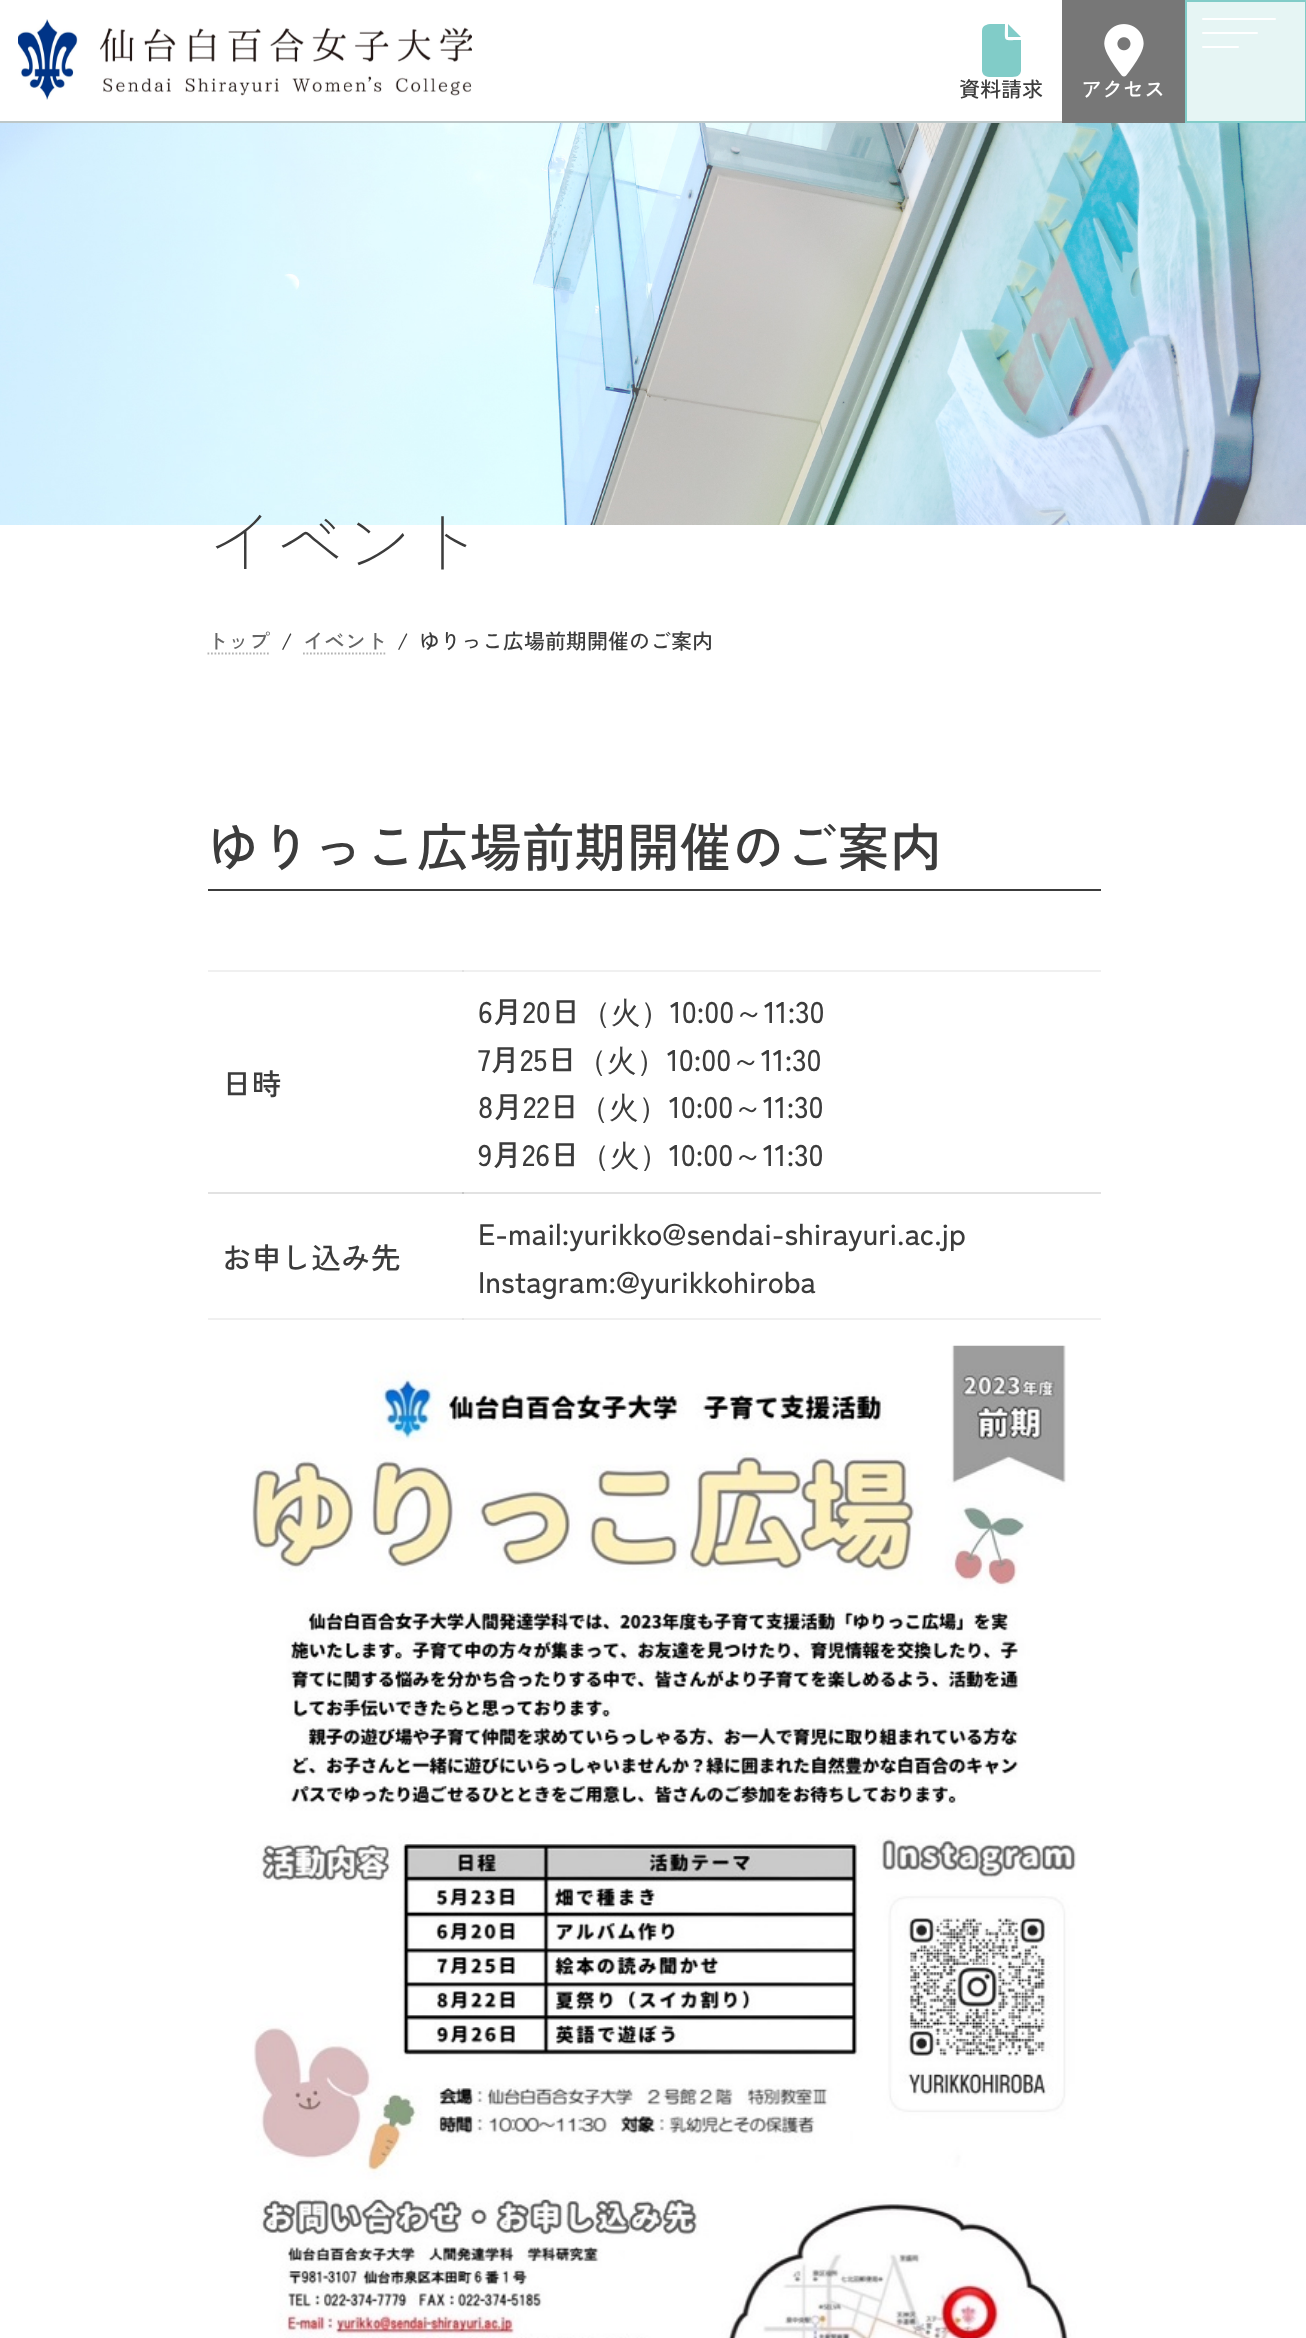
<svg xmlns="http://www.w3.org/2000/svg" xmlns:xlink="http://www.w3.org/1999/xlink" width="1306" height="2338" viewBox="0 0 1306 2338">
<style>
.cls-1{font:500 21px Zen Kaku Gothic New;fill:#3c3c3c}
.cls-2{font:500 21px Zen Kaku Gothic New;fill:#ffffff}
.cls-3{font:300 70px Zen Kaku Gothic New;letter-spacing:-2px;fill:#3c3c3c}
.cls-4{font:500 21px Zen Kaku Gothic New;fill:#666666}
.cls-5{font:500 52.5px Zen Kaku Gothic New;fill:#3c3c3c}
.cls-6{font:500 29.75px Zen Kaku Gothic New;fill:#3c3c3c}
.cls-7{font:500 29.75px WenQuanYi Zen Hei;fill:#3c3c3c}
</style>
<rect width="100%" height="100%" fill="#ffffff"/>
<rect fill="#f0f0f0" x="208" y="970" width="893" height="2"/>
<rect fill="#f0f0f0" x="208" y="1318" width="893" height="2"/>
<rect fill="#e2e2e2" x="208" y="1192" width="893" height="2"/>
<rect fill="#bdc7c8" x="0" y="121" width="1062" height="2"/>
<image xlink:href="image0.png" x="18" y="19" width="454" height="81"/>
<path fill="#81ccc8" d="M982 31C982 24 989 24 994 24H1005C1005 43 1002 40 1021 40V71C1020 77 1015 77 1010 77H993C988 77 983 77 982 71ZM1021 37H1008V24Z"/>
<rect fill="#777777" x="1062" y="0" width="123" height="123"/>
<image xlink:href="image1.png" x="1104" y="24" width="40" height="53"/>
<rect fill="#81ccc8" x="1187" y="2" width="118" height="119"/>
<rect fill="#ffffff" x="1202" y="18" width="74" height="2" rx="1"/>
<rect fill="#ffffff" x="1202" y="32" width="56" height="2" rx="1"/>
<rect fill="#ffffff" x="1202" y="46" width="37" height="2" rx="1"/>
<rect fill="#ffffff" fill-opacity="0.8" stroke="#81ccc8" stroke-width="2" x="1186" y="1" width="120" height="121"/>
<image xlink:href="image2.png" x="0" y="123" width="1306" height="402"/>
<path fill="none" stroke="#b3b3b3" stroke-width="1.8" stroke-dasharray="1.75 1.75" d="M207.5 653.5H270.5"/>
<path fill="none" stroke="#b3b3b3" stroke-width="1.8" stroke-dasharray="1.75 1.75" d="M303 653.5H387"/>
<rect fill="#3c3c3c" x="208" y="889" width="893" height="2"/>
<rect fill="#e2e2e2" x="462" y="970" width="2" height="2"/>
<rect fill="#c7c7c7" x="462" y="1192" width="2" height="2"/>
<rect fill="#e2e2e2" x="462" y="1318" width="2" height="2"/>
<image xlink:href="image3.png" x="252" y="1345" width="825" height="993"/>
<text class="cls-1" x="959" y="97">資料請求</text>
<text class="cls-2" x="1081" y="97">アクセス</text>
<text class="cls-3" x="207" y="569">イベント</text>
<text class="cls-4" x="207" y="649">トップ</text>
<text class="cls-1" x="281" y="649">/</text>
<text class="cls-4" x="303" y="649">イベント</text>
<text class="cls-1" x="397" y="649">/</text>
<text class="cls-1" x="419" y="649">ゆりっこ広場前期開催のご案内</text>
<text class="cls-5" x="207" y="867">ゆりっこ広場前期開催のご案内</text>
<text class="cls-6" x="222" y="1095">日時</text>
<text class="cls-6" x="478" y="1023">6月20日</text>
<text class="cls-7" x="581" y="1023">（火）</text>
<text class="cls-6" x="670" y="1023">10:00</text>
<text class="cls-7" x="734" y="1023">～</text>
<text class="cls-6" x="764" y="1023">11:30</text>
<text class="cls-6" x="478" y="1071">7月25日</text>
<text class="cls-7" x="577" y="1071">（火）</text>
<text class="cls-6" x="667" y="1071">10:00</text>
<text class="cls-7" x="731" y="1071">～</text>
<text class="cls-6" x="761" y="1071">11:30</text>
<text class="cls-6" x="478" y="1118">8月22日</text>
<text class="cls-7" x="579" y="1118">（火）</text>
<text class="cls-6" x="669" y="1118">10:00</text>
<text class="cls-7" x="733" y="1118">～</text>
<text class="cls-6" x="763" y="1118">11:30</text>
<text class="cls-6" x="478" y="1166">9月26日</text>
<text class="cls-7" x="580" y="1166">（火）</text>
<text class="cls-6" x="669" y="1166">10:00</text>
<text class="cls-7" x="733" y="1166">～</text>
<text class="cls-6" x="763" y="1166">11:30</text>
<text class="cls-6" x="222" y="1269">お申し込み先</text>
<text class="cls-6"><tspan x="478" y="1245">E-mail:yurikko@sendai-shirayuri.ac.jp</tspan><tspan x="478" y="1293">Instagram:@yurikkohiroba</tspan></text>
</svg>
